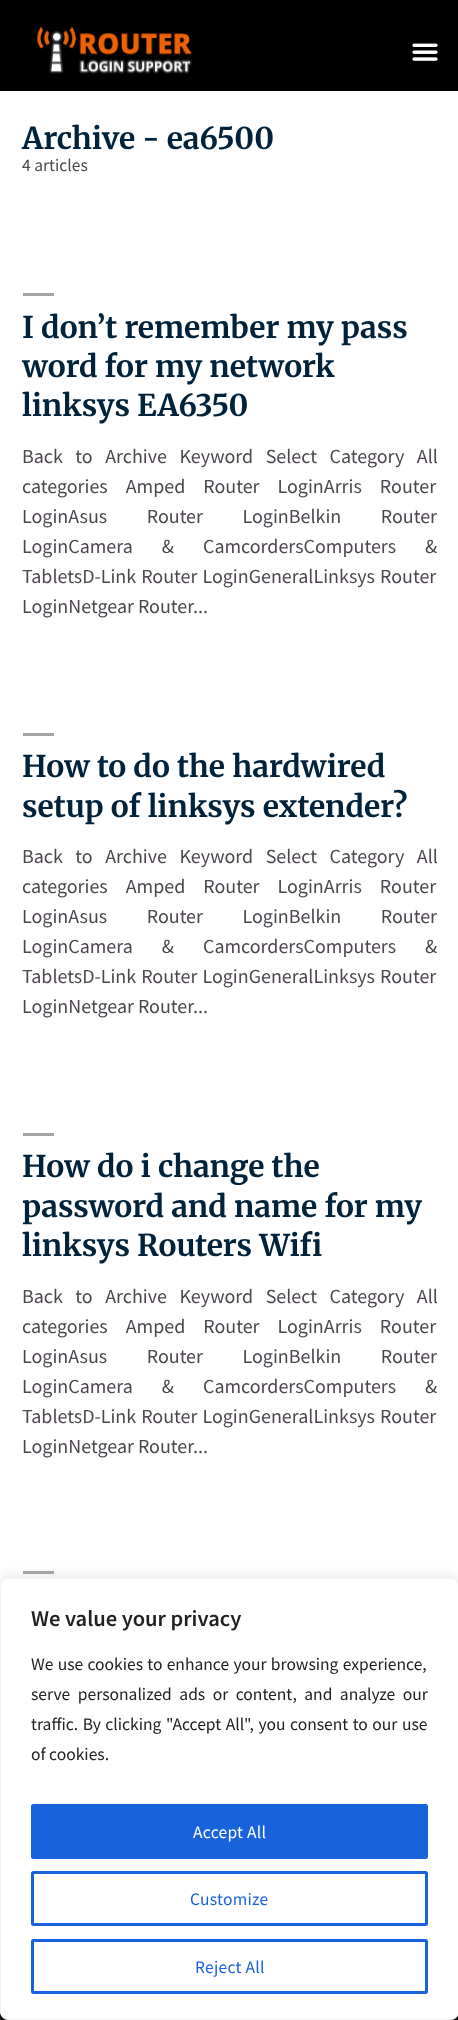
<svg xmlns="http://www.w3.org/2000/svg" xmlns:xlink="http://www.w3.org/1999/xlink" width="458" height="2020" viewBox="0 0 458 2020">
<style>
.cls-1{font:bold 30px Merriweather;fill:#00233b}
.cls-2{font:17.5px Source Sans Pro;fill:#4d464f}
.cls-3{font:20px Source Sans Pro;fill:#4d464f}
.cls-4{font:600 22.5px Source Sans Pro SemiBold;fill:#212121}
.cls-5{font:17.5px Source Sans Pro;fill:#212121}
.cls-6{font:17.5px Source Sans Pro;letter-spacing:0.25px;fill:#ffffff}
.cls-7{font:17.5px Source Sans Pro;letter-spacing:0.25px;fill:#1863dc}
</style>
<rect width="100%" height="100%" fill="#ffffff"/>
<rect fill="#000000" x="0" y="0" width="458" height="91"/>
<image xlink:href="image0.png" x="37" y="26" width="155" height="48"/>
<image xlink:href="image1.png" x="412" y="43" width="26" height="18"/>
<rect fill="#a6a3a7" x="23" y="293" width="31" height="3"/>
<rect fill="#a6a3a7" x="23" y="733" width="31" height="3"/>
<rect fill="#a6a3a7" x="23" y="1133" width="31" height="3"/>
<rect fill="#a6a3a7" x="23" y="1571" width="31" height="3"/>
<rect fill="#000000" x="0" y="2012" width="458" height="8"/>
<rect fill="#acabab" fill-opacity="0.3" filter="blur(6px)" x="0" y="1576" width="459" height="443" rx="8"/>
<rect fill="#ffffff" stroke="#f4f4f4" x="0.5" y="1578.5" width="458" height="441" rx="7.5"/>
<rect fill="#1863dc" stroke="#1863dc" stroke-width="3" x="32.5" y="1805.5" width="394" height="52" rx="1"/>
<rect fill="none" stroke="#1863dc" stroke-width="3" x="32.5" y="1872.5" width="394" height="52" rx="1"/>
<rect fill="none" stroke="#1863dc" stroke-width="3" x="32.5" y="1940.5" width="394" height="52" rx="1"/>
<text class="cls-1" x="22" y="149">Archive - ea6500</text>
<text class="cls-2" x="22" y="171">4 articles</text>
<text class="cls-1"><tspan x="22" y="338">I don’t remember my pass</tspan><tspan x="22" y="377">word for my network</tspan><tspan x="22" y="416">linksys EA6350</tspan></text>
<text class="cls-3"><tspan x="22" y="463" word-spacing="8.5">Back to Archive Keyword Select Category All</tspan><tspan x="22" y="493" word-spacing="14">categories Amped Router LoginArris Router</tspan><tspan x="22" y="523" word-spacing="35.5">LoginAsus Router LoginBelkin Router</tspan><tspan x="22" y="553" word-spacing="25">LoginCamera &amp; CamcordersComputers &amp;</tspan><tspan x="22" y="583" word-spacing="1">TabletsD-Link Router LoginGeneralLinksys Router</tspan><tspan x="22" y="613">LoginNetgear Router...</tspan></text>
<text class="cls-1"><tspan x="22" y="777">How to do the hardwired</tspan><tspan x="22" y="817">setup of linksys extender?</tspan></text>
<text class="cls-3"><tspan x="22" y="863" word-spacing="8.5">Back to Archive Keyword Select Category All</tspan><tspan x="22" y="893" word-spacing="14">categories Amped Router LoginArris Router</tspan><tspan x="22" y="923" word-spacing="35.5">LoginAsus Router LoginBelkin Router</tspan><tspan x="22" y="953" word-spacing="25">LoginCamera &amp; CamcordersComputers &amp;</tspan><tspan x="22" y="983" word-spacing="1">TabletsD-Link Router LoginGeneralLinksys Router</tspan><tspan x="22" y="1013">LoginNetgear Router...</tspan></text>
<text class="cls-1"><tspan x="22" y="1177">How do i change the</tspan><tspan x="22" y="1217">password and name for my</tspan><tspan x="22" y="1256">linksys Routers Wifi</tspan></text>
<text class="cls-3"><tspan x="22" y="1303" word-spacing="8.5">Back to Archive Keyword Select Category All</tspan><tspan x="22" y="1333" word-spacing="14">categories Amped Router LoginArris Router</tspan><tspan x="22" y="1363" word-spacing="35.5">LoginAsus Router LoginBelkin Router</tspan><tspan x="22" y="1393" word-spacing="25">LoginCamera &amp; CamcordersComputers &amp;</tspan><tspan x="22" y="1423" word-spacing="1">TabletsD-Link Router LoginGeneralLinksys Router</tspan><tspan x="22" y="1453">LoginNetgear Router...</tspan></text>
<text class="cls-4" x="31" y="1626">We value your privacy</text>
<text class="cls-5"><tspan x="31" y="1670" word-spacing="0.75">We use cookies to enhance your browsing experience,</tspan><tspan x="31" y="1700" word-spacing="4">serve personalized ads or content, and analyze our</tspan><tspan x="31" y="1730" word-spacing="1">traffic. By clicking "Accept All", you consent to our use</tspan><tspan x="31" y="1760">of cookies.</tspan></text>
<text class="cls-6" x="193" y="1838">Accept All</text>
<text class="cls-7" x="190" y="1905">Customize</text>
<text class="cls-7" x="195" y="1973">Reject All</text>
</svg>
